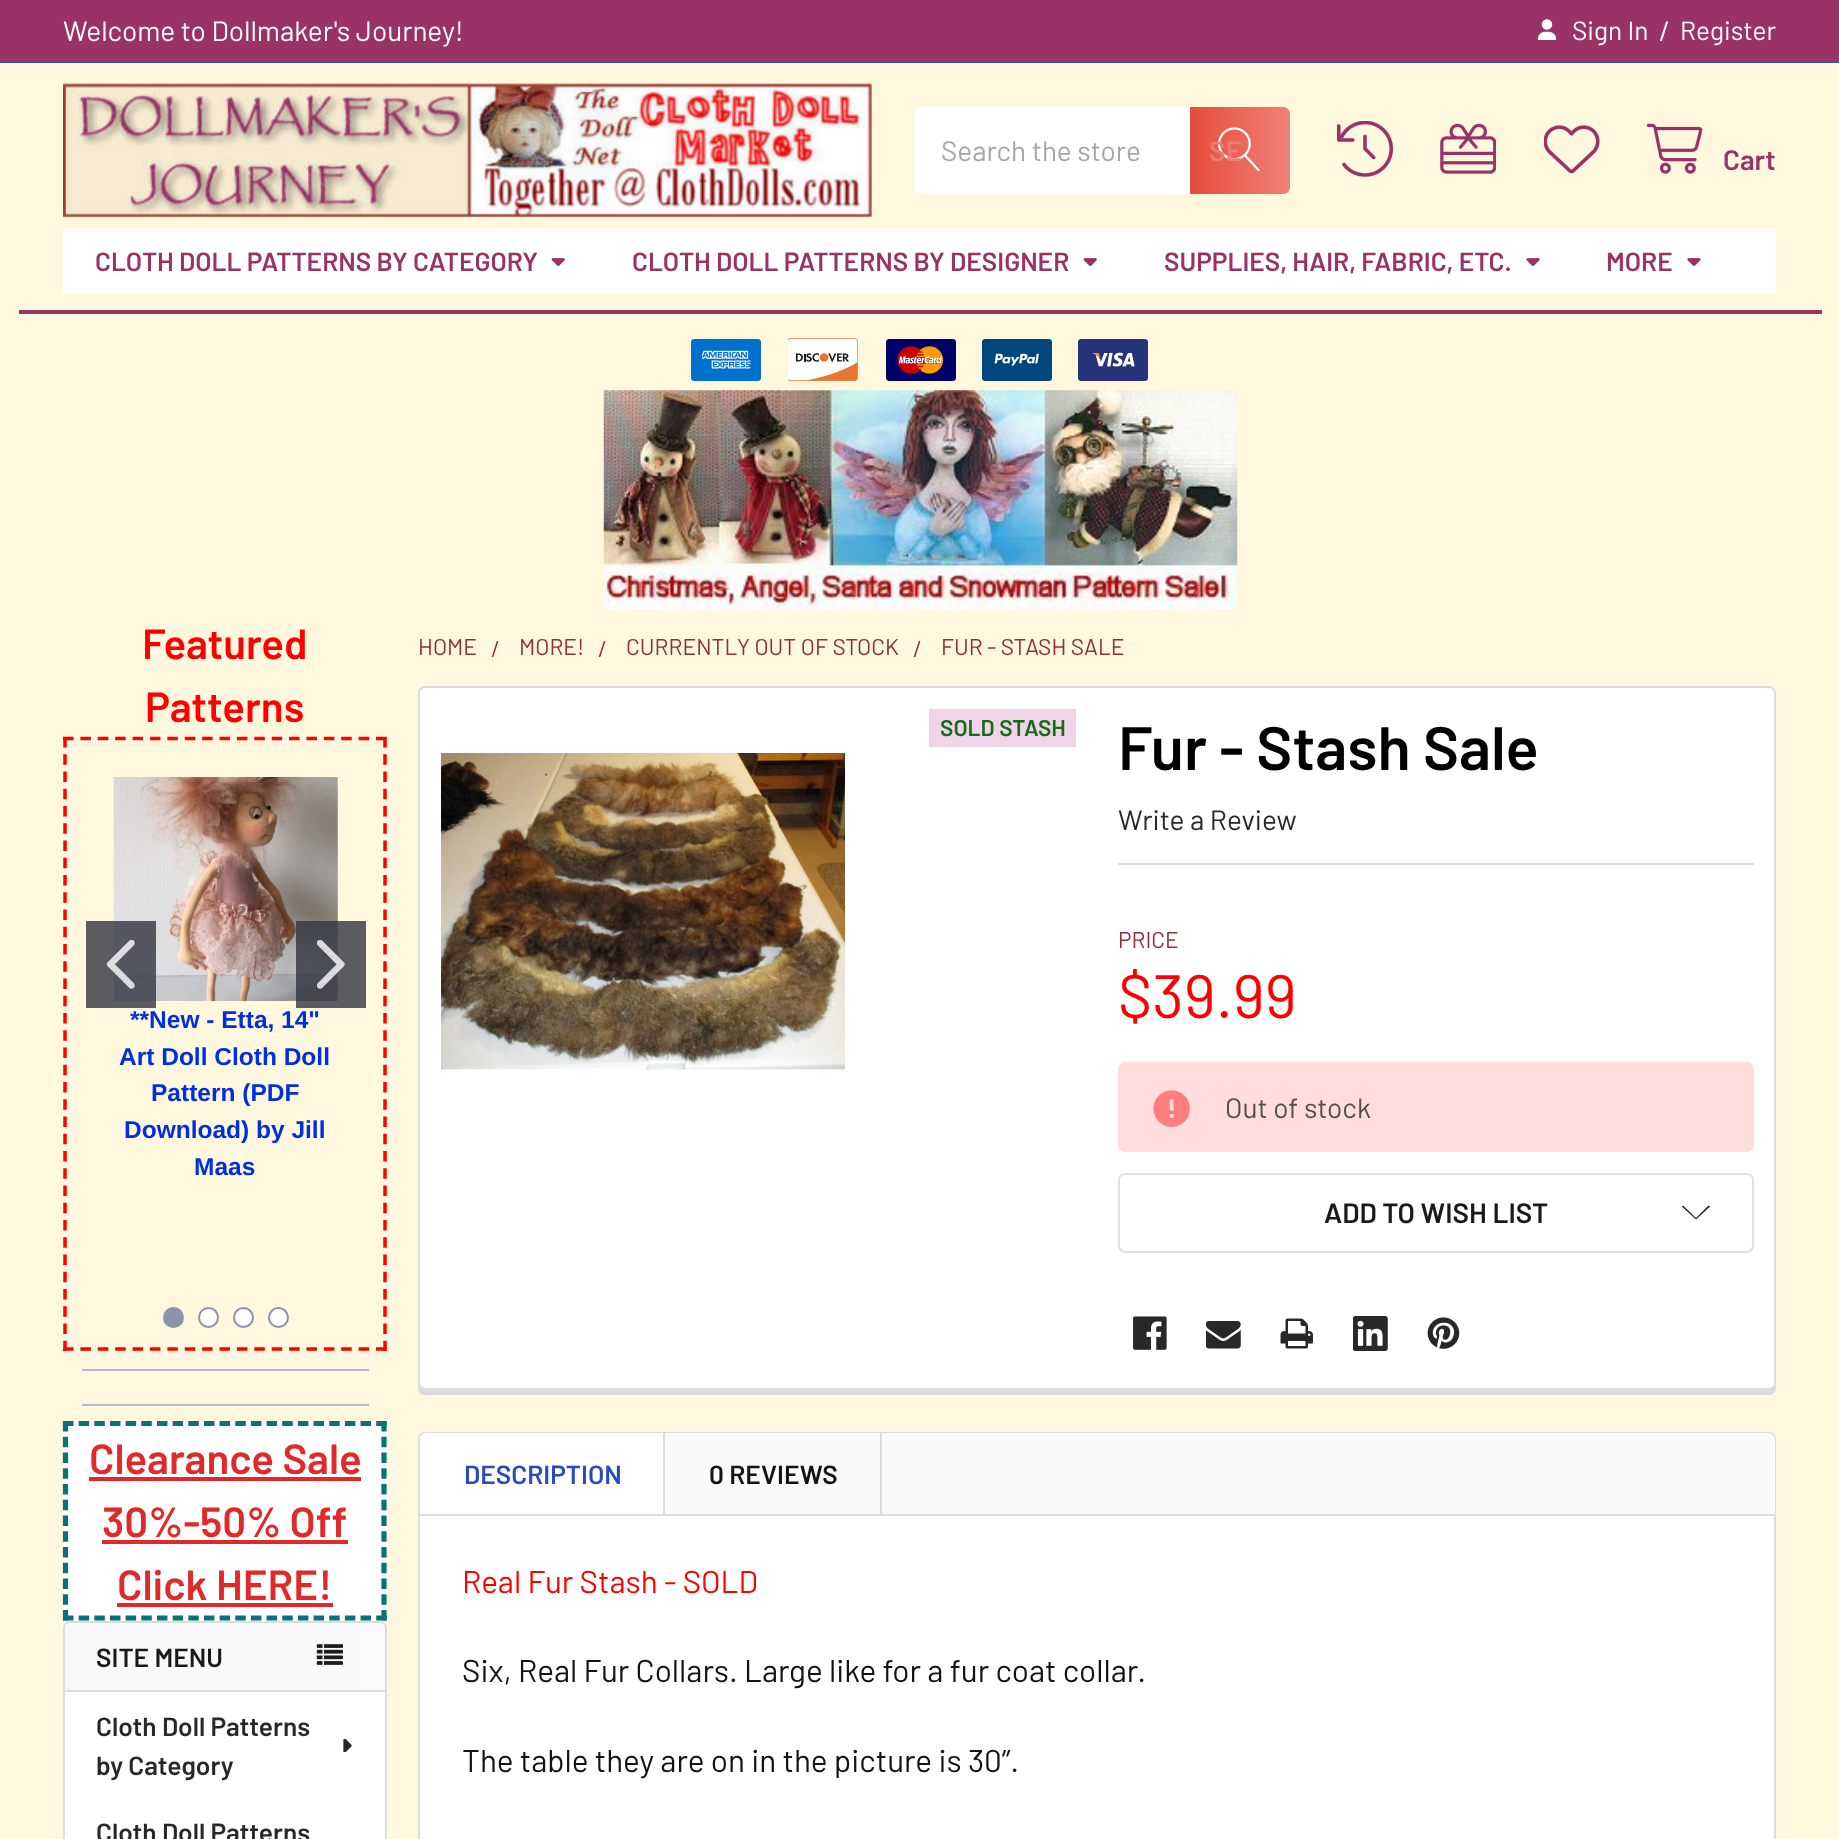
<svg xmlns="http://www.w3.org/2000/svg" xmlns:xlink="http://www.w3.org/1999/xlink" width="1839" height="1839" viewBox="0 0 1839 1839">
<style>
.cls-1{font:28px Barlow;fill:#ffffff}
.cls-2{font:26.25px Barlow;fill:#ffffff}
.cls-3{font:28px Barlow;fill:#a5a5a5}
.cls-4{font:600 28px Barlow;fill:#ed7c71}
.cls-5{font:600 28px Barlow;fill:#993365}
.cls-6{font:600 26.25px Barlow;fill:#993365}
.cls-7{font:600 42px Barlow;fill:#ff0000}
.cls-8{font:bold 24.5px Liberation Sans;fill:#002fe1}
.cls-9{font:600 42px Barlow;fill:#e12929}
.cls-10{font:600 26.25px Barlow;fill:#1a1a1a}
.cls-11{font:600 26.25px Barlow;fill:#282828}
.cls-12{font:22.75px Barlow;fill:#8a3135}
.cls-13{font:600 22.75px Barlow;fill:#166b17}
.cls-14{font:600 61.25px Barlow;fill:#000000}
.cls-15{font:28px Barlow;fill:#282828}
.cls-16{font:61.25px Barlow;fill:#ff0000}
.cls-17{font:28px Barlow;fill:#4f4f4f}
.cls-18{font:600 28px Barlow;fill:#1a1a1a}
.cls-19{font:600 26.25px Barlow;fill:#2a4abf}
.cls-20{font:600 26.25px Barlow;fill:#131313}
.cls-21{font:31.5px Barlow;fill:#ff0000}
.cls-22{font:31.5px Barlow;fill:#131313}
</style>
<defs>
<linearGradient id="g1" gradientUnits="userSpaceOnUse" x1="1190" y1="151" x2="1290" y2="151"><stop offset="0" stop-color="#e74c3c"/><stop offset="1" stop-color="#e74c3c" stop-opacity="0.7"/></linearGradient>
<linearGradient id="g2" gradientUnits="userSpaceOnUse" x1="63" y1="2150" x2="387" y2="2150"><stop offset="0" stop-color="#f8f8f8"/><stop offset="1" stop-color="#f8f8f8" stop-opacity="0.6"/></linearGradient>
</defs>
<rect width="100%" height="100%" fill="#fff7de"/>
<rect fill="#993365" x="0" y="0" width="1839" height="61"/>
<rect fill="#384fb2" x="0" y="61" width="1839" height="2"/>
<image xlink:href="image0.png" x="1537" y="19" width="20" height="21"/>
<image xlink:href="image1.png" x="63" y="83" width="809" height="134"/>
<rect fill="#ffffff" x="914" y="107" width="376" height="87" rx="7"/>
<path fill="url(#g1)" d="M1190 107H1283C1287 107 1290 110 1290 114V187C1290 191 1287 194 1283 194H1190Z"/>
<image xlink:href="image2.png" x="1218" y="127" width="42" height="45"/>
<image xlink:href="image3.png" x="1337" y="121" width="56" height="56"/>
<image xlink:href="image4.png" x="1440" y="123" width="56" height="51"/>
<image xlink:href="image5.png" x="1544" y="125" width="56" height="49"/>
<image xlink:href="image6.png" x="1647" y="123" width="56" height="51"/>
<rect fill="#ffffff" x="63" y="228" width="1713" height="66"/>
<image xlink:href="image7.png" x="551" y="258" width="14" height="8"/>
<image xlink:href="image7.png" x="1083" y="258" width="14" height="8"/>
<image xlink:href="image8.png" x="1526" y="258" width="14" height="8"/>
<image xlink:href="image8.png" x="1687" y="258" width="14" height="8"/>
<rect fill="#993365" x="19" y="310" width="1803" height="4"/>
<image xlink:href="image9.png" x="691" y="339" width="70" height="42"/>
<image xlink:href="image10.png" x="788" y="338" width="70" height="43"/>
<image xlink:href="image11.png" x="886" y="339" width="70" height="42"/>
<image xlink:href="image12.png" x="982" y="339" width="70" height="42"/>
<image xlink:href="image13.png" x="1078" y="339" width="70" height="42"/>
<image xlink:href="image14.png" x="603" y="390" width="635" height="219"/>
<path fill="none" stroke="#ff0000" stroke-width="3.5" stroke-dasharray="10.5 6.89" d="M63 738.5H387"/>
<path fill="none" stroke="#ff0000" stroke-width="3.5" stroke-dasharray="10.5 6.75" d="M385 737V1351"/>
<path fill="none" stroke="#ff0000" stroke-width="3.5" stroke-dasharray="10.5 6.89" d="M63 1349H387"/>
<path fill="none" stroke="#ff0000" stroke-width="3.5" stroke-dasharray="10.5 6.75" d="M65 737V1351"/>
<image xlink:href="image17.png" x="113" y="777" width="225" height="224"/>
<rect fill="#313440" fill-opacity="0.8" x="86" y="921" width="70" height="87"/>
<image xlink:href="image15.png" x="107" y="940" width="28" height="49"/>
<rect fill="#313440" fill-opacity="0.8" x="296" y="921" width="70" height="87"/>
<image xlink:href="image16.png" x="317" y="940" width="28" height="49"/>
<circle fill="#8c93ad" stroke="#8c93ad" stroke-width="2" cx="173.5" cy="1317.5" r="9.5"/>
<circle fill="#ffffff" stroke="#8c93ad" stroke-width="2" cx="208.5" cy="1317.5" r="9.5"/>
<circle fill="#ffffff" stroke="#8c93ad" stroke-width="2" cx="243.5" cy="1317.5" r="9.5"/>
<circle fill="#ffffff" stroke="#8c93ad" stroke-width="2" cx="278.5" cy="1317.5" r="9.5"/>
<rect fill="#b4bad1" x="82" y="1369" width="287" height="2"/>
<rect fill="#b4bad1" x="82" y="1404" width="287" height="2"/>
<rect fill="#ffffff" x="63" y="1421" width="324" height="200"/>
<path fill="none" stroke="#097276" stroke-width="5.2" stroke-dasharray="10.5 5.16" d="M63 1423.5H387"/>
<path fill="none" stroke="#097276" stroke-width="5.2" stroke-dasharray="10.5 5.25" d="M384 1421V1620.5"/>
<path fill="none" stroke="#097276" stroke-width="5.2" stroke-dasharray="10.5 5.16" d="M63 1618H387"/>
<path fill="none" stroke="#097276" stroke-width="5.2" stroke-dasharray="10.5 5.25" d="M65.5 1421V1620.5"/>
<rect fill="#e12929" x="89" y="1477" width="272" height="4"/>
<rect fill="#e12929" x="102" y="1540" width="246" height="4"/>
<rect fill="#e12929" x="117" y="1603" width="216" height="4"/>
<rect fill="#ffffff" x="63" y="1621" width="324" height="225" rx="7"/>
<rect fill="url(#g2)" x="63" y="1621" width="324" height="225" rx="7"/>
<path fill="none" stroke="#dcdcdc" stroke-width="2" d="M70 1622H380C383.5 1622 386 1624.5 386 1628V1691H64V1628C64 1624.5 66.5 1622 70 1622Z"/>
<image xlink:href="image18.png" x="316" y="1644" width="27" height="21"/>
<rect fill="#ffffff" x="65" y="1692" width="320" height="147"/>
<path fill="#dcdcdc" fill-rule="evenodd" d="M63 1692H387V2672C387 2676 384 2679 380 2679H70C66 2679 63 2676 63 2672ZM65 1692H385V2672C385 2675 383 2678 380 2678H70C67 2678 65 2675 65 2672Z"/>
<image xlink:href="image19.png" x="343" y="1738" width="9" height="14"/>
<path fill="#dcdcdc" d="M418 696V1388C418 1392 421 1395 425 1395H1769C1773 1395 1776 1392 1776 1388V1384C1775 1387 1772 1390 1769 1390H425C421 1390 418 1386 418 1382Z"/>
<rect fill="#ffffff" stroke="#dcdcdc" stroke-width="2" x="419" y="687" width="1356" height="702" rx="6"/>
<rect fill="#efd5e7" x="929" y="709" width="147" height="38"/>
<image xlink:href="image20.png" x="441" y="753" width="404" height="317"/>
<rect fill="#dcdcdc" x="1118" y="863" width="636" height="2"/>
<rect fill="#ffdddd" x="1118" y="1062" width="636" height="90" rx="7"/>
<image xlink:href="image21.png" x="1153" y="1090" width="37" height="37"/>
<rect fill="none" stroke="#e0e1e4" stroke-width="2" x="1119" y="1174" width="634" height="78" rx="6"/>
<path fill="#1a1a1a" fill-rule="evenodd" d="M1696 1218L1708.5 1205.5L1710 1206.5L1696 1219.5L1682 1206.5L1683 1205.5Z"/>
<image xlink:href="image22.png" x="1133" y="1316" width="34" height="34"/>
<image xlink:href="image23.png" x="1206" y="1321" width="35" height="28"/>
<image xlink:href="image24.png" x="1280" y="1318" width="33" height="31"/>
<image xlink:href="image25.png" x="1353" y="1316" width="35" height="35"/>
<image xlink:href="image26.png" x="1427" y="1317" width="33" height="32"/>
<rect fill="#ffffff" stroke="#dcdcdc" stroke-width="2" x="419" y="1433" width="1356" height="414" rx="6"/>
<path fill="#fafafa" d="M427 1433H1768C1772 1433 1775 1436 1775 1440V1516H420V1440C420 1436 423 1433 427 1433Z"/>
<rect fill="#dcdcdc" x="420" y="1514" width="1355" height="2"/>
<path fill="#ffffff" d="M427 1433H665V1514H420V1440C420 1436 423 1433 427 1433Z"/>
<rect fill="#dcdcdc" x="663" y="1433" width="2" height="81"/>
<rect fill="#dcdcdc" x="880" y="1433" width="2" height="81"/>
<text class="cls-1" x="63" y="41">Welcome to Dollmaker's Journey!</text>
<text class="cls-2" x="1572" y="40">Sign In</text>
<text class="cls-1" x="1659" y="41">/</text>
<text class="cls-2" x="1680" y="40">Register</text>
<text class="cls-3" x="941" y="161">Search the store</text>
<text class="cls-4" x="1209" y="161">SE</text>
<text class="cls-5" x="1723" y="170">Cart</text>
<text class="cls-6" x="95" y="271">CLOTH DOLL PATTERNS BY CATEGORY</text>
<text class="cls-6" x="632" y="271">CLOTH DOLL PATTERNS BY DESIGNER</text>
<text class="cls-6" x="1164" y="271">SUPPLIES, HAIR, FABRIC, ETC.</text>
<text class="cls-6" x="1606" y="271">MORE</text>
<text class="cls-7" x="142" y="659">Featured</text>
<text class="cls-7" x="145" y="722">Patterns</text>
<text class="cls-8" x="130" y="1028">**New - Etta, 14"</text>
<text class="cls-8" x="119" y="1065">Art Doll Cloth Doll</text>
<text class="cls-8" x="151" y="1101">Pattern (PDF</text>
<text class="cls-8" x="124" y="1138">Download) by Jill</text>
<text class="cls-8" x="194" y="1175">Maas</text>
<text class="cls-9" x="89" y="1474">Clearance Sale</text>
<text class="cls-9" x="102" y="1537">30%-50% Off</text>
<text class="cls-9" x="117" y="1600">Click HERE!</text>
<text class="cls-10" x="96" y="1667">SITE MENU</text>
<text class="cls-11"><tspan x="96" y="1736">Cloth Doll Patterns</tspan><tspan x="96" y="1775">by Category</tspan></text>
<text class="cls-11" x="96" y="1842">Cloth Doll Patterns</text>
<text class="cls-12" x="418" y="655">HOME</text>
<text class="cls-12" x="491" y="657">/</text>
<text class="cls-12" x="519" y="655">MORE!</text>
<text class="cls-12" x="598" y="657">/</text>
<text class="cls-12" x="626" y="655">CURRENTLY OUT OF STOCK</text>
<text class="cls-12" x="913" y="657">/</text>
<text class="cls-12" x="941" y="655">FUR - STASH SALE</text>
<text class="cls-13" x="940" y="736">SOLD STASH</text>
<text class="cls-14" x="1118" y="770">Fur - Stash Sale</text>
<text class="cls-15" x="1118" y="830">Write a Review</text>
<text class="cls-12" x="1118" y="948">PRICE</text>
<text class="cls-16" x="1118" y="1018">$39.99</text>
<text class="cls-17" x="1225" y="1118">Out of stock</text>
<text class="cls-18" x="1324" y="1223">ADD TO WISH LIST</text>
<text class="cls-19" x="464" y="1484">DESCRIPTION</text>
<text class="cls-20" x="709" y="1484">0 REVIEWS</text>
<text class="cls-21" x="462" y="1593">Real Fur Stash - SOLD</text>
<text class="cls-22" x="462" y="1682">Six, Real Fur Collars. Large like for a fur coat collar.</text>
<text class="cls-22" x="462" y="1772">The table they are on in the picture is 30”.</text>
</svg>
